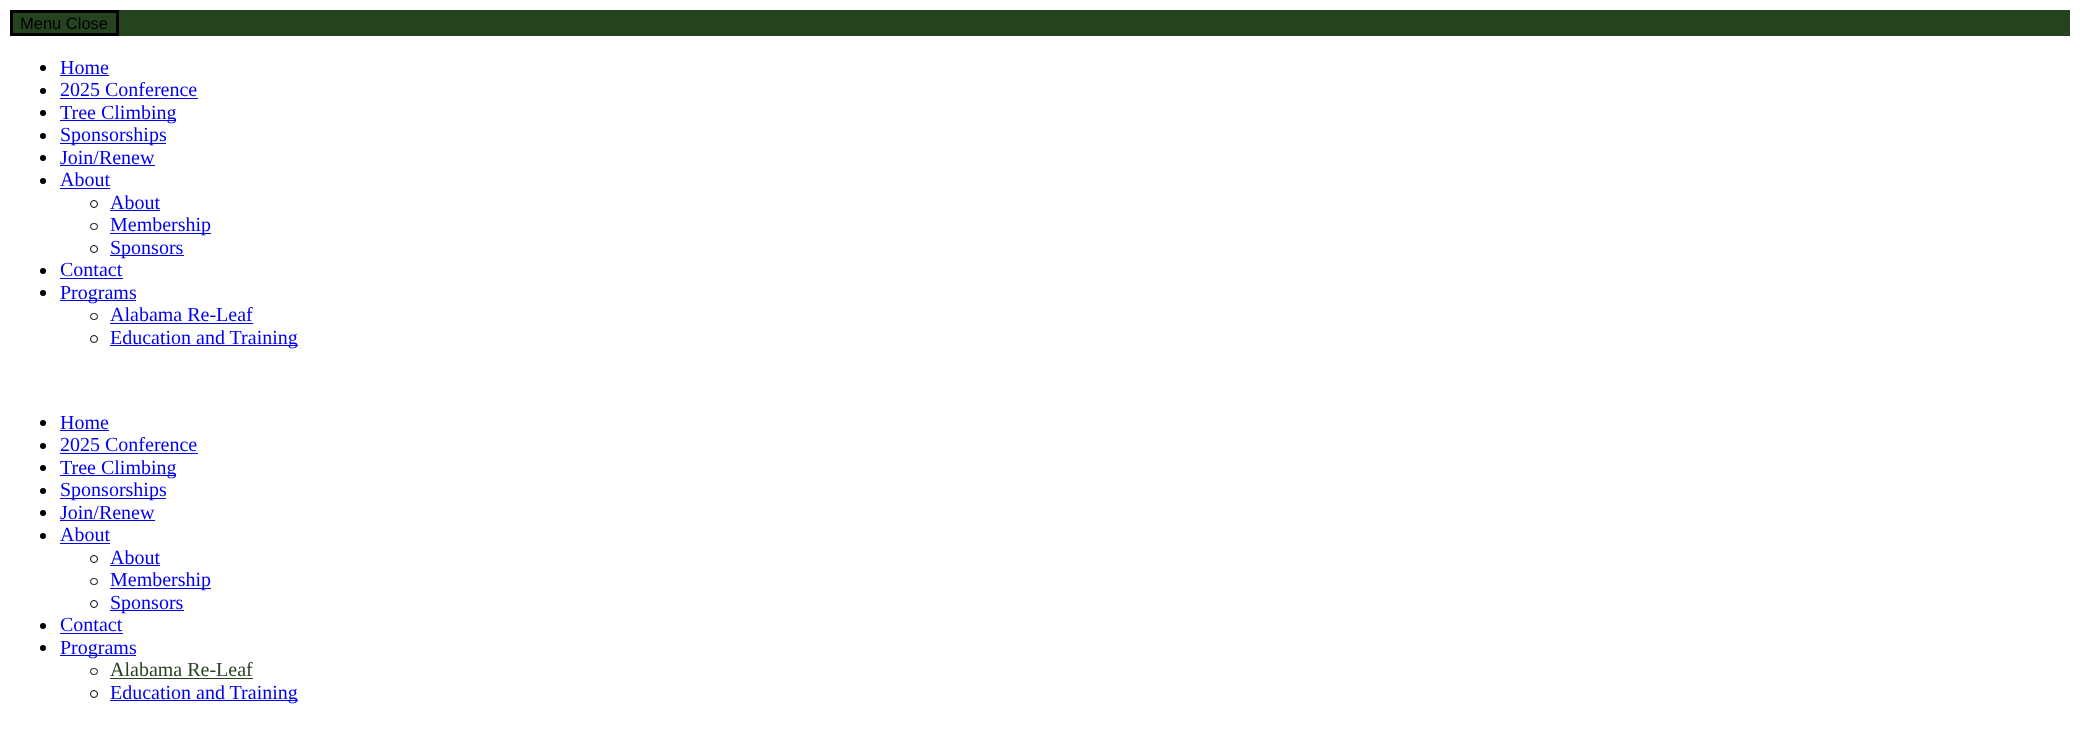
<svg xmlns="http://www.w3.org/2000/svg" xmlns:xlink="http://www.w3.org/1999/xlink" width="2080" height="748" viewBox="0 0 2080 748">
<style>
.cls-1{font:16.5px Liberation Sans;fill:#000000}
.cls-2{font:20px Liberation Serif;fill:#0000ee}
.cls-3{font:20px Liberation Serif;fill:#264320}
</style>
<rect width="100%" height="100%" fill="#ffffff"/>
<rect fill="#264320" x="13" y="10" width="2057" height="26"/>
<rect fill="none" stroke="#000000" stroke-width="3" x="11.5" y="11.5" width="106" height="23"/>
<circle fill="#000000" cx="43" cy="68" r="3"/>
<rect fill="#0000ee" x="60" y="75" width="49" height="1"/>
<circle fill="#000000" cx="43" cy="91" r="3"/>
<rect fill="#0000ee" x="60" y="98" width="138" height="1"/>
<circle fill="#000000" cx="43" cy="113" r="3"/>
<rect fill="#0000ee" x="60" y="120" width="116" height="1"/>
<circle fill="#000000" cx="43" cy="136" r="3"/>
<rect fill="#0000ee" x="60" y="143" width="106" height="1"/>
<circle fill="#000000" cx="43" cy="158" r="3"/>
<rect fill="#0000ee" x="60" y="165" width="95" height="1"/>
<circle fill="#000000" cx="43" cy="181" r="3"/>
<rect fill="#0000ee" x="60" y="188" width="50" height="1"/>
<circle fill="none" stroke="#000000" cx="94" cy="204" r="3.5"/>
<rect fill="#0000ee" x="110" y="210" width="50" height="1"/>
<rect fill="none" stroke="#000000" x="90.5" y="223.5" width="7" height="6" rx="3"/>
<rect fill="#0000ee" x="110" y="233" width="101" height="1"/>
<circle fill="none" stroke="#000000" cx="94" cy="249" r="3.5"/>
<rect fill="#0000ee" x="110" y="255" width="74" height="1"/>
<circle fill="#000000" cx="43" cy="271" r="3"/>
<rect fill="#0000ee" x="60" y="278" width="63" height="1"/>
<circle fill="#000000" cx="43" cy="293" r="3"/>
<rect fill="#0000ee" x="60" y="300" width="76" height="1"/>
<rect fill="none" stroke="#000000" x="90.5" y="313.5" width="7" height="6" rx="3"/>
<rect fill="#0000ee" x="110" y="323" width="143" height="1"/>
<circle fill="none" stroke="#000000" cx="94" cy="339" r="3.5"/>
<rect fill="#0000ee" x="110" y="345" width="188" height="1"/>
<circle fill="#000000" cx="43" cy="423" r="3"/>
<rect fill="#0000ee" x="60" y="430" width="49" height="1"/>
<circle fill="#000000" cx="43" cy="446" r="3"/>
<rect fill="#0000ee" x="60" y="453" width="138" height="1"/>
<circle fill="#000000" cx="43" cy="468" r="3"/>
<rect fill="#0000ee" x="60" y="475" width="116" height="1"/>
<circle fill="#000000" cx="43" cy="491" r="3"/>
<rect fill="#0000ee" x="60" y="498" width="106" height="1"/>
<circle fill="#000000" cx="43" cy="513" r="3"/>
<rect fill="#0000ee" x="60" y="520" width="95" height="1"/>
<circle fill="#000000" cx="43" cy="536" r="3"/>
<rect fill="#0000ee" x="60" y="543" width="50" height="1"/>
<circle fill="none" stroke="#000000" cx="94" cy="559" r="3.5"/>
<rect fill="#0000ee" x="110" y="565" width="50" height="1"/>
<rect fill="none" stroke="#000000" x="90.5" y="578.5" width="7" height="6" rx="3"/>
<rect fill="#0000ee" x="110" y="588" width="101" height="1"/>
<circle fill="none" stroke="#000000" cx="94" cy="604" r="3.5"/>
<rect fill="#0000ee" x="110" y="610" width="74" height="1"/>
<circle fill="#000000" cx="43" cy="626" r="3"/>
<rect fill="#0000ee" x="60" y="633" width="63" height="1"/>
<circle fill="#000000" cx="43" cy="648" r="3"/>
<rect fill="#0000ee" x="60" y="655" width="76" height="1"/>
<rect fill="none" stroke="#000000" x="90.5" y="668.5" width="7" height="6" rx="3"/>
<rect fill="#264320" x="110" y="678" width="143" height="1"/>
<circle fill="none" stroke="#000000" cx="94" cy="694" r="3.5"/>
<rect fill="#0000ee" x="110" y="700" width="188" height="1"/>
<text class="cls-1" x="20" y="29">Menu Close</text>
<text class="cls-2"><tspan x="60" y="74">Home</tspan><tspan x="60" y="96">2025 Conference</tspan><tspan x="60" y="119">Tree Climbing</tspan><tspan x="60" y="141">Sponsorships</tspan><tspan x="60" y="164">Join/Renew</tspan><tspan x="60" y="186">About</tspan></text>
<text class="cls-2"><tspan x="110" y="209">About</tspan><tspan x="110" y="231">Membership</tspan><tspan x="110" y="254">Sponsors</tspan></text>
<text class="cls-2"><tspan x="60" y="276">Contact</tspan><tspan x="60" y="299">Programs</tspan></text>
<text class="cls-2"><tspan x="110" y="321">Alabama Re-Leaf</tspan><tspan x="110" y="344">Education and Training</tspan></text>
<text class="cls-2"><tspan x="60" y="429">Home</tspan><tspan x="60" y="451">2025 Conference</tspan><tspan x="60" y="474">Tree Climbing</tspan><tspan x="60" y="496">Sponsorships</tspan><tspan x="60" y="519">Join/Renew</tspan><tspan x="60" y="541">About</tspan></text>
<text class="cls-2"><tspan x="110" y="564">About</tspan><tspan x="110" y="586">Membership</tspan><tspan x="110" y="609">Sponsors</tspan></text>
<text class="cls-2"><tspan x="60" y="631">Contact</tspan><tspan x="60" y="654">Programs</tspan></text>
<text class="cls-3" x="110" y="676">Alabama Re-Leaf</text>
<text class="cls-2" x="110" y="699">Education and Training</text>
</svg>
